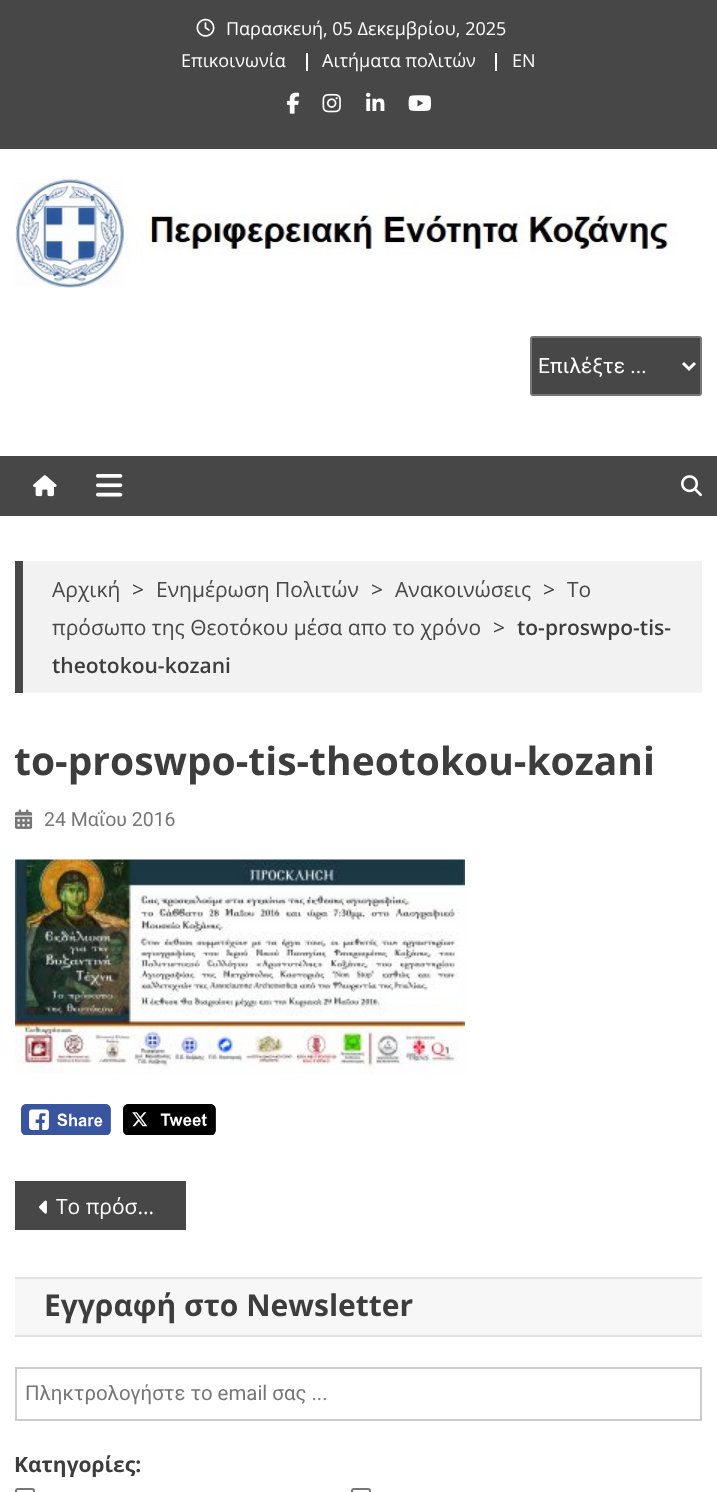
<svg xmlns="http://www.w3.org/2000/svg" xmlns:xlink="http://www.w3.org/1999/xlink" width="717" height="1492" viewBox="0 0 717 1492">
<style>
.cls-1{font:18px Open Sans;fill:#ffffff}
.cls-2{font:21px Roboto;fill:#ffffff}
.cls-3{font:21px Open Sans;fill:#474747}
.cls-4{font:21px Open Sans;fill:#3d3d3d}
.cls-5{font:600 21px Open Sans;fill:#3d3d3d}
.cls-6{font:bold 39px Open Sans;fill:#3d3d3d}
.cls-7{font:19.5px Roboto;fill:#767676}
.cls-8{font:21px Open Sans;fill:#ffffff}
.cls-9{font:bold 30px Open Sans;fill:#3d3d3d}
.cls-10{font:20.4px Roboto;fill:#767676}
.cls-11{font:bold 21px Open Sans;fill:#3d3d3d}
</style>
<rect width="100%" height="100%" fill="#ffffff"/>
<rect fill="#474747" x="0" y="0" width="717" height="149"/>
<image xlink:href="image0.png" x="196" y="18" width="19" height="19"/>
<rect fill="#ffffff" x="306" y="53" width="2" height="18"/>
<rect fill="#ffffff" x="495" y="53" width="2" height="18"/>
<image xlink:href="image1.png" x="287" y="92" width="13" height="22"/>
<image xlink:href="image2.png" x="322" y="93" width="19" height="20"/>
<image xlink:href="image3.png" x="366" y="92" width="19" height="19"/>
<image xlink:href="image4.png" x="408" y="95" width="23" height="16"/>
<image xlink:href="image5.png" x="15" y="178" width="662" height="110"/>
<rect fill="#474747" stroke="#767676" stroke-width="2" x="531" y="337" width="170" height="58" rx="2"/>
<path fill="none" stroke="#ffffff" stroke-width="3" d="M683 363L689 369L695 363"/>
<rect fill="#474747" x="0" y="456" width="717" height="60"/>
<image xlink:href="image6.png" x="33" y="475" width="24" height="22"/>
<image xlink:href="image7.png" x="96" y="474" width="27" height="23"/>
<image xlink:href="image8.png" x="681" y="475" width="21" height="22"/>
<rect fill="#f2f2f2" x="23" y="561" width="679" height="132"/>
<rect fill="#474747" x="15" y="561" width="8" height="132"/>
<image xlink:href="image9.png" x="15" y="809" width="18" height="20"/>
<image xlink:href="image10.png" x="15" y="859" width="450" height="215"/>
<image xlink:href="image11.png" x="21" y="1104" width="90" height="31"/>
<image xlink:href="image12.png" x="123" y="1104" width="93" height="31"/>
<rect fill="#474747" x="15" y="1181" width="171" height="49"/>
<image xlink:href="image13.png" x="39" y="1200" width="8" height="14"/>
<rect fill="#f7f7f7" x="15" y="1279" width="687" height="56"/>
<rect fill="#e1e1e1" x="15" y="1277" width="687" height="2"/>
<rect fill="#e1e1e1" x="15" y="1335" width="687" height="2"/>
<rect fill="none" stroke="#cccccc" stroke-width="2" x="16" y="1368" width="685" height="52"/>
<rect fill="none" stroke="#767676" stroke-width="2" x="16" y="1489" width="18" height="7" rx="2"/>
<rect fill="none" stroke="#767676" stroke-width="2" x="352" y="1489" width="18" height="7" rx="2"/>
<text class="cls-1" x="226" y="35">Παρασκευή, 05 Δεκεμβρίου, 2025</text>
<text class="cls-1" x="181" y="67">Επικοινωνία</text>
<text class="cls-1" x="322" y="67">Αιτήματα πολιτών</text>
<text class="cls-1" x="512" y="67">EN</text>
<text class="cls-2" x="538" y="373">Επιλέξτε ...</text>
<text class="cls-3" x="52" y="597">Αρχική</text>
<text class="cls-4" x="132" y="597">&gt;</text>
<text class="cls-3" x="156" y="597">Ενημέρωση Πολιτών</text>
<text class="cls-4" x="371" y="597">&gt;</text>
<text class="cls-3" x="395" y="597">Ανακοινώσεις</text>
<text class="cls-4" x="543" y="597">&gt;</text>
<text class="cls-3" x="567" y="597">Το</text>
<text class="cls-3" x="52" y="635">πρόσωπο της Θεοτόκου μέσα απο το χρόνο</text>
<text class="cls-4" x="493" y="635">&gt;</text>
<text class="cls-5" x="517" y="635">to-proswpo-tis-</text>
<text class="cls-5" x="52" y="673">theotokou-kozani</text>
<text class="cls-6" x="14" y="775">to-proswpo-tis-theotokou-kozani</text>
<text class="cls-7" x="44" y="826">24 Μαΐου 2016</text>
<text class="cls-8" x="56" y="1214">Το πρόσ...</text>
<text class="cls-9" x="44" y="1316">Εγγραφή στο Newsletter</text>
<text class="cls-10" x="25" y="1400">Πληκτρολογήστε το email σας ...</text>
<text class="cls-11" x="14" y="1472">Κατηγορίες:</text>
</svg>
